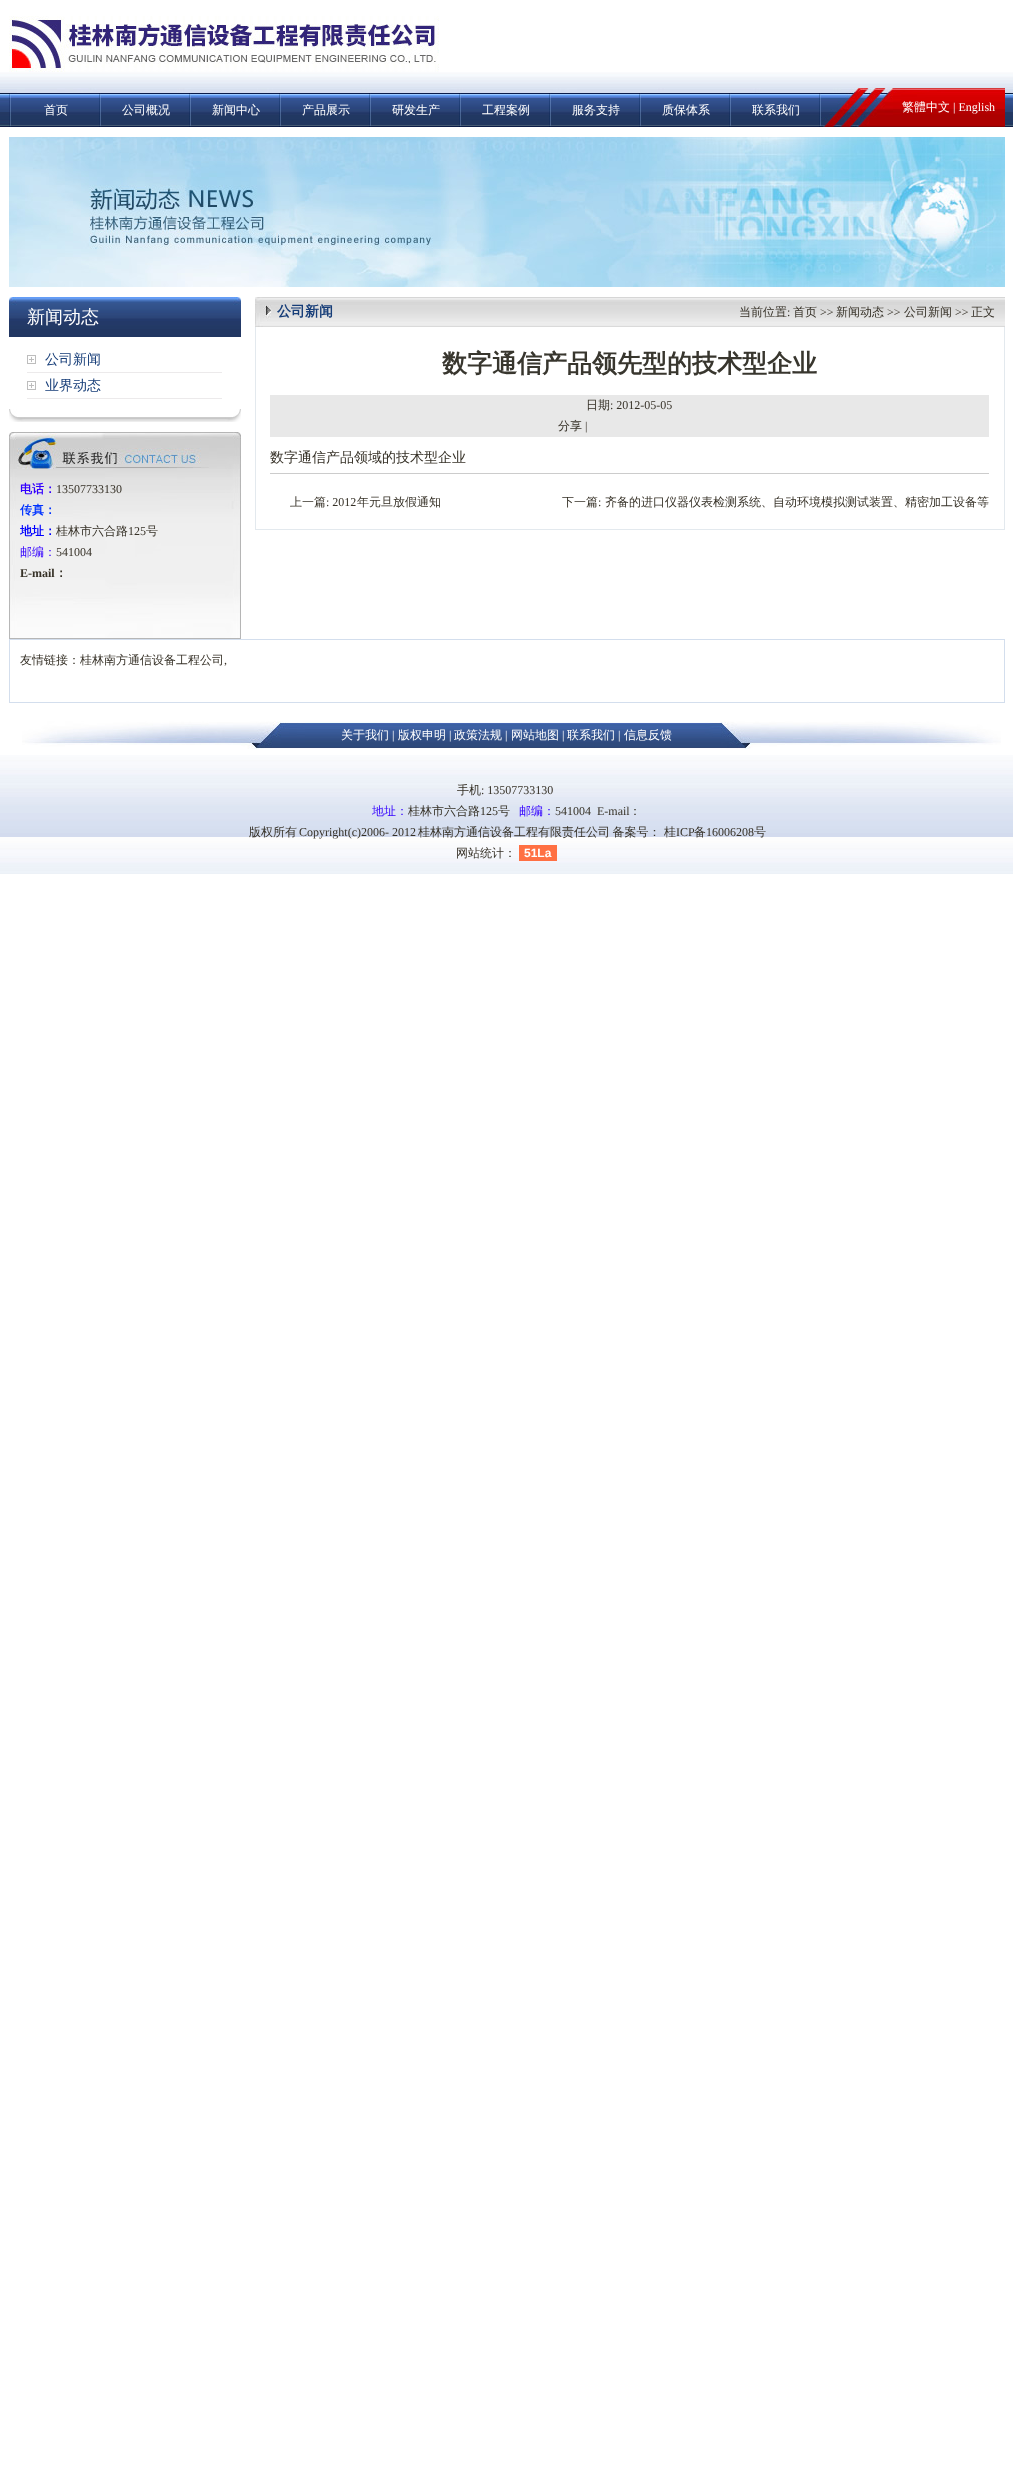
<svg xmlns="http://www.w3.org/2000/svg" xmlns:xlink="http://www.w3.org/1999/xlink" width="1013" height="2484" viewBox="0 0 1013 2484">
<style>
.cls-1{font:500 12px WenQuanYi Zen Hei;fill:#ffffff}
.cls-2{font:12px Liberation Serif;fill:#ffffff}
.cls-3{font:500 18px WenQuanYi Zen Hei;fill:#ffffff}
.cls-4{font:500 14px WenQuanYi Zen Hei;fill:#163d78}
.cls-5{font:bold 12px WenQuanYi Zen Hei;fill:#3300ff}
.cls-6{font:12px Liberation Serif;fill:#363127}
.cls-7{font:bold 12px WenQuanYi Zen Hei;fill:#0033ff}
.cls-8{font:bold 12px WenQuanYi Zen Hei;fill:#0000ff}
.cls-9{font:500 12px WenQuanYi Zen Hei;fill:#363127}
.cls-10{font:500 12px WenQuanYi Zen Hei;fill:#3300ff}
.cls-11{font:bold 12px Liberation Serif;fill:#363127}
.cls-12{font:bold 12px WenQuanYi Zen Hei;fill:#363127}
.cls-13{font:bold 14px WenQuanYi Zen Hei;fill:#163d78}
.cls-14{font:bold 25px WenQuanYi Zen Hei;fill:#38362e}
.cls-15{font:500 14px WenQuanYi Zen Hei;fill:#363127}
.cls-16{font:bold 12px Liberation Sans;fill:#ffffff}
</style>
<rect width="100%" height="100%" fill="#ffffff"/>
<image xlink:href="image0.png" x="0" y="72" width="1013" height="55"/>
<image xlink:href="image1.png" x="9" y="16" width="430" height="56"/>
<image xlink:href="image2.png" x="17" y="88" width="988" height="5"/>
<image xlink:href="image3.png" x="9" y="93" width="2" height="34"/>
<image xlink:href="image4.png" x="11" y="93" width="90" height="34"/>
<image xlink:href="image4.png" x="101" y="93" width="90" height="34"/>
<image xlink:href="image4.png" x="191" y="93" width="90" height="34"/>
<image xlink:href="image4.png" x="281" y="93" width="90" height="34"/>
<image xlink:href="image4.png" x="371" y="93" width="90" height="34"/>
<image xlink:href="image4.png" x="461" y="93" width="90" height="34"/>
<image xlink:href="image4.png" x="551" y="93" width="90" height="34"/>
<image xlink:href="image4.png" x="641" y="93" width="90" height="34"/>
<image xlink:href="image4.png" x="731" y="93" width="90" height="34"/>
<image xlink:href="image5.png" x="821" y="93" width="184" height="34"/>
<image xlink:href="image6.png" x="9" y="137" width="996" height="150"/>
<image xlink:href="image7.png" x="9" y="297" width="232" height="40"/>
<image xlink:href="image8.png" x="27" y="355" width="9" height="9"/>
<rect fill="#eceaeb" x="27" y="372" width="195" height="1"/>
<image xlink:href="image8.png" x="27" y="381" width="9" height="9"/>
<rect fill="#eceaeb" x="27" y="398" width="195" height="1"/>
<image xlink:href="image9.png" x="9" y="409" width="232" height="13"/>
<image xlink:href="image10.png" x="9" y="432" width="232" height="37"/>
<image xlink:href="image11.png" x="9" y="469" width="232" height="169"/>
<rect fill="#b6b6b6" x="9" y="638" width="232" height="1"/>
<image xlink:href="image12.png" x="255" y="297" width="750" height="30"/>
<rect fill="#e3e9ee" x="1004" y="327" width="1" height="203"/>
<rect fill="#e3e9ee" x="255" y="529" width="750" height="1"/>
<rect fill="#e3e9ee" x="255" y="327" width="1" height="203"/>
<rect fill="#e8e8e8" x="270" y="395" width="719" height="21"/>
<rect fill="#e8e8e8" x="270" y="416" width="719" height="21"/>
<rect fill="#cccccc" x="270" y="473" width="719" height="1"/>
<rect fill="none" stroke="#d3deed" x="9.5" y="639.5" width="995" height="63"/>
<image xlink:href="image13.png" x="22" y="721" width="979" height="28"/>
<image xlink:href="image14.png" x="0" y="755" width="1013" height="119"/>
<rect fill="#ff7043" x="519" y="845" width="38" height="16"/>
<text class="cls-1" x="44" y="114">首页</text>
<text class="cls-1" x="122" y="114">公司概况</text>
<text class="cls-1" x="212" y="114">新闻中心</text>
<text class="cls-1" x="302" y="114">产品展示</text>
<text class="cls-1" x="392" y="114">研发生产</text>
<text class="cls-1" x="482" y="114">工程案例</text>
<text class="cls-1" x="572" y="114">服务支持</text>
<text class="cls-1" x="662" y="114">质保体系</text>
<text class="cls-1" x="752" y="114">联系我们</text>
<text class="cls-1" x="902" y="111">繁體中文</text>
<text class="cls-2" x="953" y="111">| English</text>
<text class="cls-3" x="27" y="323">新闻动态</text>
<text class="cls-4"><tspan x="45" y="364">公司新闻</tspan><tspan x="45" y="390">业界动态</tspan></text>
<text class="cls-5" x="20" y="493">电话：</text>
<text class="cls-6" x="56" y="493">13507733130</text>
<text class="cls-7" x="20" y="514">传真：</text>
<text class="cls-8" x="20" y="535">地址：</text>
<text class="cls-9" x="56" y="535">桂林市六合路</text>
<text class="cls-6" x="128" y="535">125</text>
<text class="cls-9" x="146" y="535">号</text>
<text class="cls-10" x="20" y="556">邮编：</text>
<text class="cls-6" x="56" y="556">541004</text>
<text class="cls-11" x="20" y="577">E-mail</text>
<text class="cls-12" x="55" y="577">：</text>
<text class="cls-13" x="277" y="316">公司新闻</text>
<text class="cls-9" x="739" y="316">当前位置</text>
<text class="cls-6" x="787" y="316">:</text>
<text class="cls-9" x="793" y="316">首页</text>
<text class="cls-6" x="820" y="316">&gt;&gt;</text>
<text class="cls-9" x="836" y="316">新闻动态</text>
<text class="cls-6" x="887" y="316">&gt;&gt;</text>
<text class="cls-9" x="904" y="316">公司新闻</text>
<text class="cls-6" x="955" y="316">&gt;&gt;</text>
<text class="cls-9" x="971" y="316">正文</text>
<text class="cls-14" x="442" y="372">数字通信产品领先型的技术型企业</text>
<text class="cls-9" x="586" y="409">日期</text>
<text class="cls-6" x="610" y="409">: 2012-05-05</text>
<text class="cls-9" x="558" y="430">分享</text>
<text class="cls-6" x="585" y="430">|</text>
<text class="cls-15" x="270" y="462">数字通信产品领域的技术型企业</text>
<text class="cls-9" x="290" y="506">上一篇</text>
<text class="cls-6" x="326" y="506">: 2012</text>
<text class="cls-9" x="357" y="506">年元旦放假通知</text>
<text class="cls-9" x="562" y="506">下一篇</text>
<text class="cls-6" x="598" y="506">:</text>
<text class="cls-9" x="605" y="506">齐备的进口仪器仪表检测系统、自动环境模拟测试装置、精密加工设备等</text>
<text class="cls-9" x="20" y="664">友情链接：桂林南方通信设备工程公司</text>
<text class="cls-6" x="224" y="664">,</text>
<text class="cls-1" x="341" y="739">关于我们</text>
<text class="cls-2" x="392" y="739">|</text>
<text class="cls-1" x="398" y="739">版权申明</text>
<text class="cls-2" x="449" y="739">|</text>
<text class="cls-1" x="454" y="739">政策法规</text>
<text class="cls-2" x="505" y="739">|</text>
<text class="cls-1" x="511" y="739">网站地图</text>
<text class="cls-2" x="562" y="739">|</text>
<text class="cls-1" x="567" y="739">联系我们</text>
<text class="cls-2" x="618" y="739">|</text>
<text class="cls-1" x="624" y="739">信息反馈</text>
<text class="cls-9" x="457" y="794">手机</text>
<text class="cls-6" x="481" y="794">: 13507733130</text>
<text class="cls-10" x="372" y="815">地址：</text>
<text class="cls-9" x="408" y="815">桂林市六合路</text>
<text class="cls-6" x="480" y="815">125</text>
<text class="cls-9" x="498" y="815">号</text>
<text class="cls-10" x="519" y="815">邮编：</text>
<text class="cls-6" xml:space="preserve" x="555" y="815">541004  E-mail</text>
<text class="cls-9" x="629" y="815">：</text>
<text class="cls-9" x="249" y="836">版权所有</text>
<text class="cls-6" x="299" y="836">Copyright(c)2006- 2012</text>
<text class="cls-9" x="418" y="836" word-spacing="-1">桂林南方通信设备工程有限责任公司 备案号：</text>
<text class="cls-9" x="664" y="836">桂</text>
<text class="cls-6" x="676" y="836">ICP</text>
<text class="cls-9" x="694" y="836">备</text>
<text class="cls-6" x="706" y="836">16006208</text>
<text class="cls-9" x="754" y="836">号</text>
<text class="cls-9" x="456" y="857">网站统计：</text>
<text class="cls-16" x="524" y="857">51La</text>
</svg>
